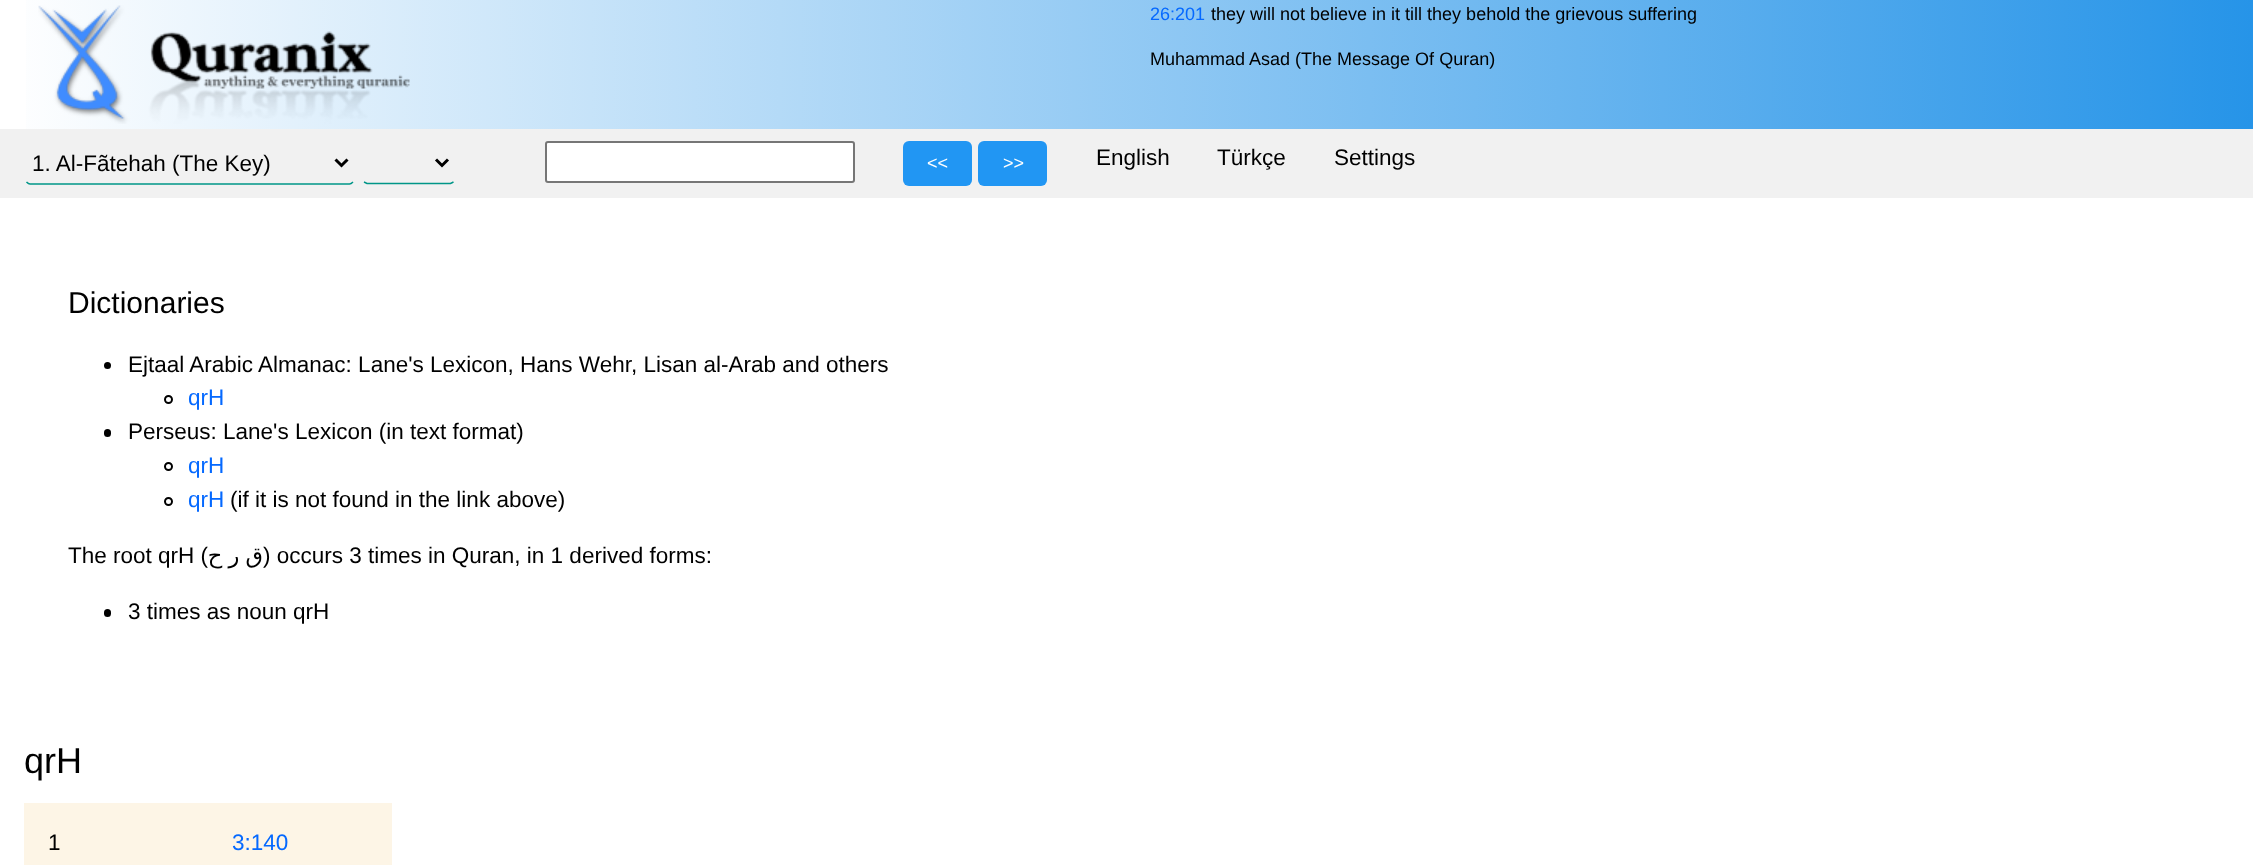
<svg xmlns="http://www.w3.org/2000/svg" xmlns:xlink="http://www.w3.org/1999/xlink" width="2253" height="865" viewBox="0 0 2253 865">
<style>
.cls-1{font:18px Liberation Sans;fill:#0569ff}
.cls-2{font:18px Liberation Sans;fill:#000000}
.cls-3{font:22.5px Liberation Sans;fill:#000000}
.cls-4{font:18px Liberation Sans;fill:#ffffff}
.cls-5{font:30px Liberation Sans;fill:#000000}
.cls-6{font:22.5px Liberation Sans;fill:#0569ff}
.cls-7{font:22.5px DejaVu Sans;direction:rtl;fill:#000000}
.cls-8{font:36px Liberation Sans;fill:#000000}
</style>
<defs>
<linearGradient id="g1" gradientUnits="userSpaceOnUse" x1="0" y1="65" x2="2253" y2="64"><stop offset="0" stop-color="#ffffff"/><stop offset="1" stop-color="#2694e8"/></linearGradient>
</defs>
<rect width="100%" height="100%" fill="#ffffff"/>
<rect fill="url(#g1)" x="26" y="0" width="2227" height="129"/>
<image xlink:href="image0.png" x="38" y="5" width="372" height="119"/>
<rect fill="#f1f1f1" x="0" y="129" width="2253" height="69"/>
<path fill="none" stroke="#009688" stroke-width="1.5" d="M353 182C352 183 351 184 349.5 184H30C28.5 184 27.5 183 26.5 182"/>
<path fill="none" stroke="#000000" stroke-width="3" d="M335.5 159.5L341.5 165.5L347.5 159.5"/>
<path fill="none" stroke="#009688" stroke-width="1.5" d="M453.5 182L450.5 183.5H367L364 182"/>
<path fill="none" stroke="#000000" stroke-width="3" d="M436 159.5L442 165.5L448 159.5"/>
<rect fill="#ffffff" stroke="#767676" stroke-width="2" x="546" y="142" width="308" height="40" rx="2"/>
<rect fill="#2196f3" x="903" y="141" width="69" height="45" rx="6"/>
<rect fill="#2196f3" x="978" y="141" width="69" height="45" rx="6"/>
<circle fill="#000000" cx="107.5" cy="365.5" r="3.5"/>
<circle fill="none" stroke="#000000" stroke-width="2" cx="168.5" cy="399.5" r="3.5"/>
<rect fill="#000000" x="104" y="429" width="7" height="8" rx="3.5"/>
<circle fill="none" stroke="#000000" stroke-width="2" cx="168.5" cy="466.5" r="3.5"/>
<circle fill="none" stroke="#000000" stroke-width="2" cx="168.5" cy="501.5" r="3.5"/>
<rect fill="#000000" x="104" y="609" width="7" height="8" rx="3.5"/>
<rect fill="#fdf5e6" x="24" y="803" width="368" height="62"/>
<text class="cls-1" x="1150" y="20">26:201</text>
<text class="cls-2" x="1211" y="20">they will not believe in it till they behold the grievous suffering</text>
<text class="cls-2" x="1150" y="65">Muhammad Asad (The Message Of Quran)</text>
<text class="cls-3" x="32" y="171">1. Al-Fãtehah (The Key)</text>
<text class="cls-4" x="927" y="169">&lt;&lt;</text>
<text class="cls-4" x="1003" y="169">&gt;&gt;</text>
<text class="cls-3" x="1096" y="165">English</text>
<text class="cls-3" x="1217" y="165">Türkçe</text>
<text class="cls-3" x="1334" y="165">Settings</text>
<text class="cls-5" x="68" y="313">Dictionaries</text>
<text class="cls-3" x="128" y="372">Ejtaal Arabic Almanac: Lane's Lexicon, Hans Wehr, Lisan al-Arab and others</text>
<text class="cls-6" x="188" y="405">qrH</text>
<text class="cls-3" x="128" y="439">Perseus: Lane's Lexicon (in text format)</text>
<text class="cls-6"><tspan x="188" y="473">qrH</tspan><tspan x="188" y="507">qrH</tspan></text>
<text class="cls-3" x="230" y="507">(if it is not found in the link above)</text>
<text class="cls-3" x="68" y="563">The root qrH (</text>
<text class="cls-7" x="263" y="563" word-spacing="-1">ق ر ح</text>
<text class="cls-3" x="263" y="563">) occurs 3 times in Quran, in 1 derived forms:</text>
<text class="cls-3" x="128" y="619">3 times as noun qrH</text>
<text class="cls-8" x="24" y="773">qrH</text>
<text class="cls-3" x="48" y="850">1</text>
<text class="cls-6" x="232" y="850">3:140</text>
</svg>
